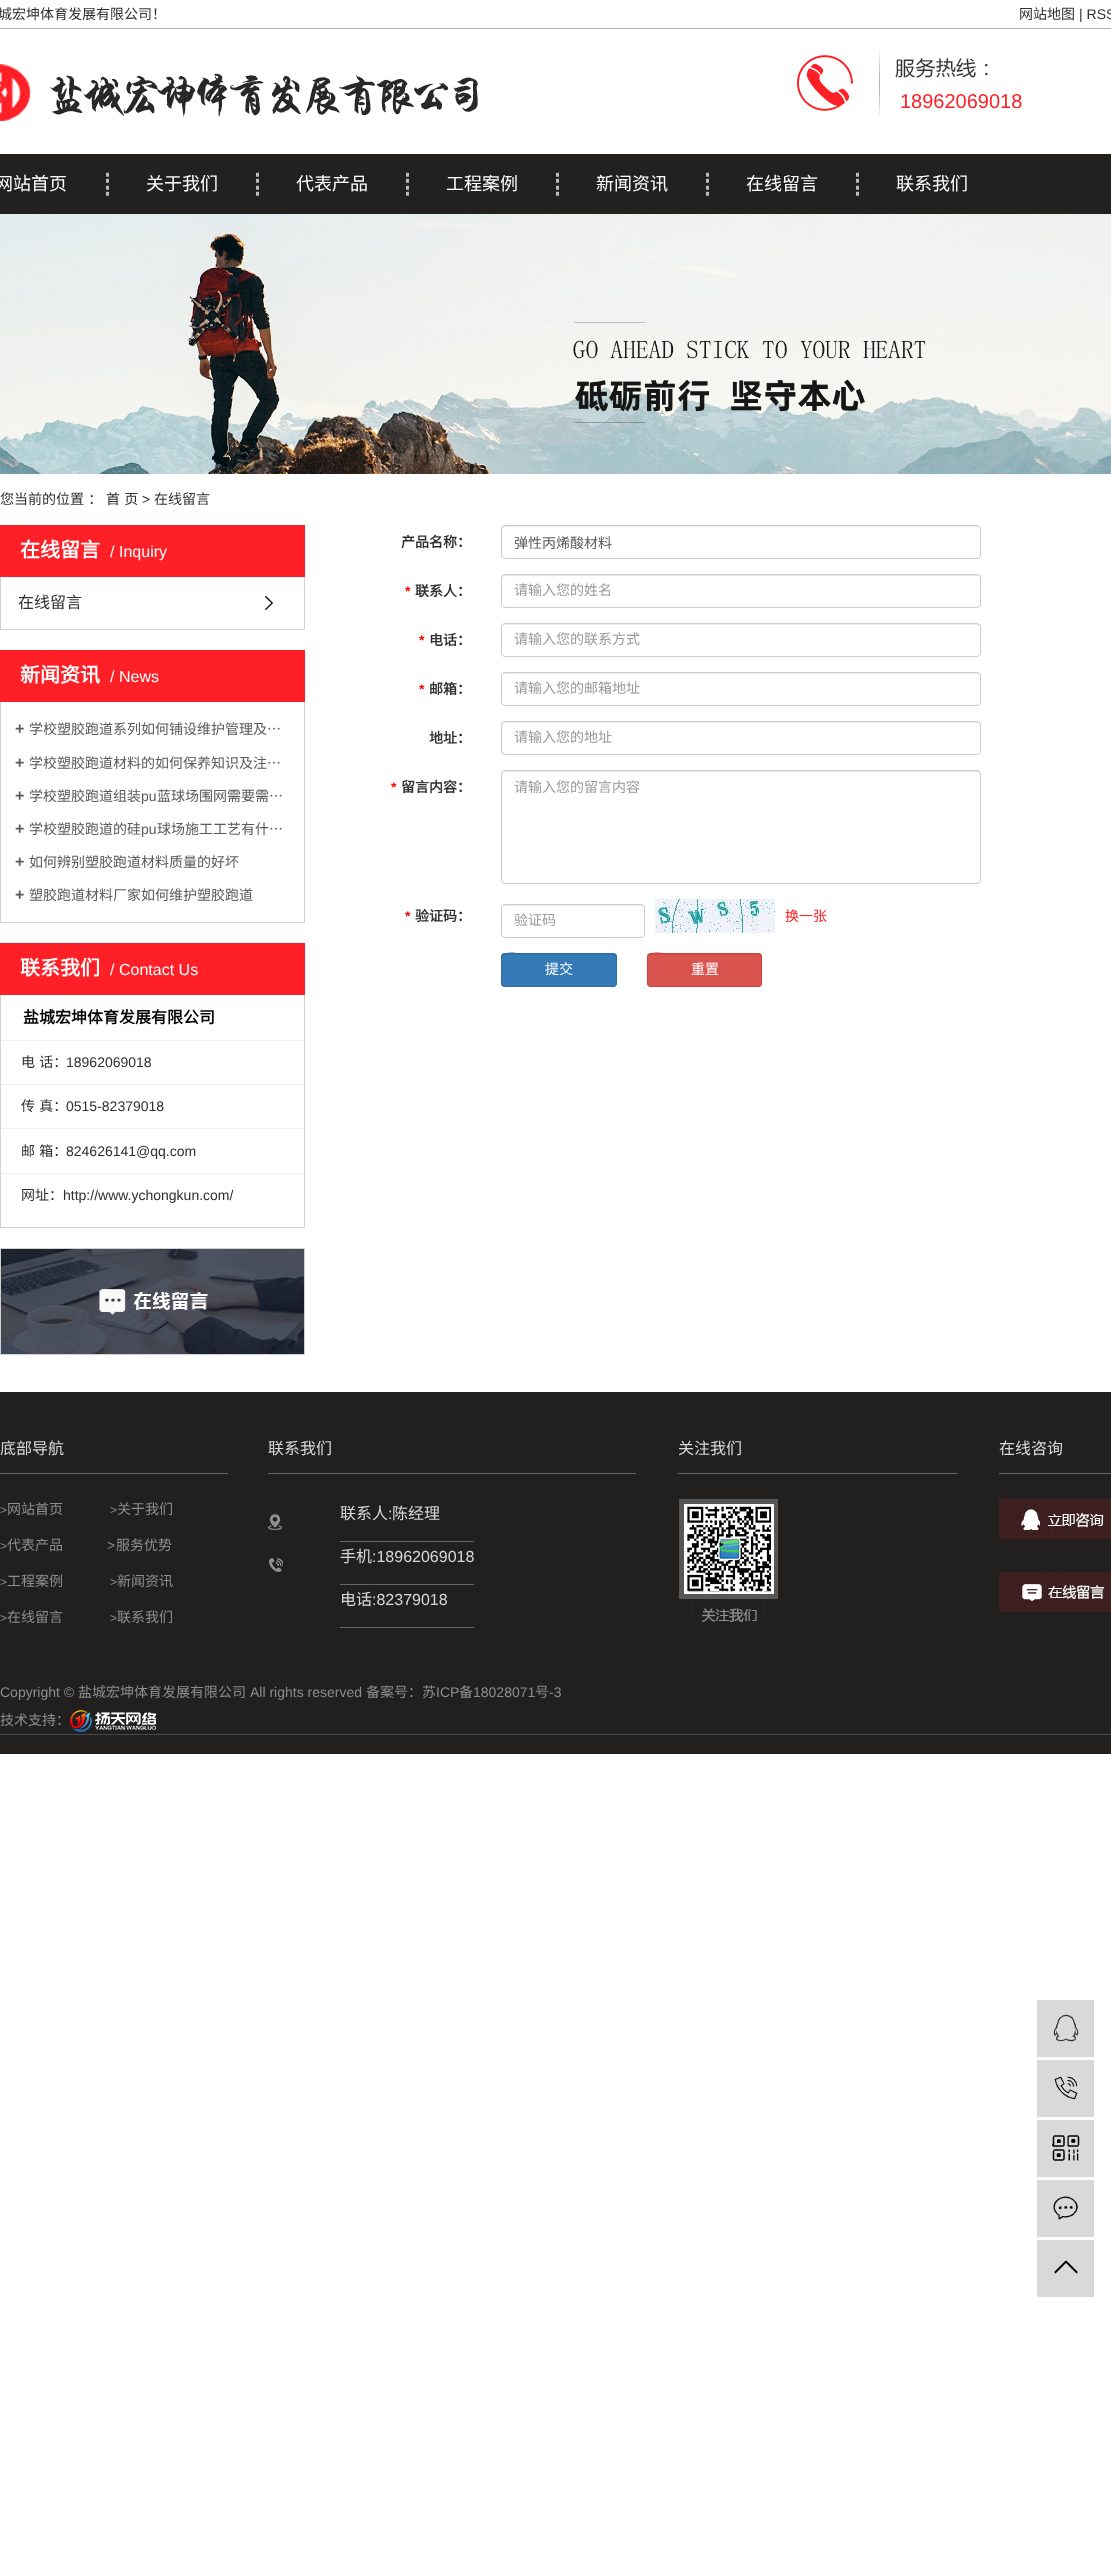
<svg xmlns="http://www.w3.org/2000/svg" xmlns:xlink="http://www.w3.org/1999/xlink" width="1111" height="2555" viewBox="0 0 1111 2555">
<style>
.cls-1{font:14px Noto Sans CJK SC;fill:#2f2f2f}
.cls-2{font:14px Liberation Sans;fill:#2f2f2f}
.cls-3{font:20px Liberation Sans;fill:#fe2026}
.cls-4{font:18px Noto Sans CJK SC;fill:#ffffff}
.cls-5{font:bold 20px Noto Sans CJK SC;fill:#ffffff}
.cls-6{font:16px Liberation Sans;fill:#ffffff}
.cls-7{font:16px Noto Sans CJK SC;fill:#2f2f2f}
.cls-8{font:bold 16px Liberation Sans;fill:#5a5a5a}
.cls-9{font:14px Noto Sans CJK SC;fill:#5a5a5a}
.cls-10{font:14px Liberation Sans;fill:#5a5a5a}
.cls-11{font:bold 16px Noto Sans CJK SC;fill:#000000}
.cls-12{font:bold 14px Noto Sans CJK SC;fill:#2f2f2f}
.cls-13{font:bold 14px Liberation Sans;fill:#ff0000}
.cls-14{font:14px Noto Sans CJK SC;fill:#999999}
.cls-15{font:14px Noto Sans CJK SC;fill:#fe2026}
.cls-16{font:14px Noto Sans CJK SC;fill:#ffffff}
.cls-17{font:16px Noto Sans CJK SC;fill:#d8d8d8}
.cls-18{font:12px Liberation Sans;fill:#8e8e8e}
.cls-19{font:14px Noto Sans CJK SC;fill:#8e8e8e}
.cls-20{font:14px Liberation Sans;fill:#8e8e8e}
.cls-21{font:16px Liberation Sans;fill:#d8d8d8}
</style>
<rect width="100%" height="100%" fill="#ffffff"/>
<rect fill="#b3b3b3" x="0" y="28" width="1111" height="1"/>
<image xlink:href="image0.png" x="0" y="64" width="478" height="57"/>
<image xlink:href="image1.png" x="797" y="50" width="191" height="64"/>
<rect fill="#232020" x="0" y="154" width="1111" height="60"/>
<image xlink:href="image2.png" x="106" y="172" width="3" height="24"/>
<image xlink:href="image2.png" x="256" y="172" width="3" height="24"/>
<image xlink:href="image2.png" x="406" y="172" width="3" height="24"/>
<image xlink:href="image2.png" x="556" y="172" width="3" height="24"/>
<image xlink:href="image2.png" x="706" y="172" width="3" height="24"/>
<image xlink:href="image2.png" x="856" y="172" width="3" height="24"/>
<image xlink:href="image3.png" x="0" y="214" width="1111" height="260"/>
<rect fill="#fe2026" x="0" y="525" width="305" height="52"/>
<rect fill="#d2d2d2" x="304" y="577" width="1" height="53"/>
<rect fill="#d2d2d2" x="0" y="629" width="305" height="1"/>
<rect fill="#d2d2d2" x="0" y="577" width="1" height="53"/>
<image xlink:href="image4.png" x="265" y="596" width="8" height="14"/>
<rect fill="#fe2026" x="0" y="650" width="305" height="52"/>
<rect fill="#d2d2d2" x="304" y="702" width="1" height="221"/>
<rect fill="#d2d2d2" x="0" y="922" width="305" height="1"/>
<rect fill="#d2d2d2" x="0" y="702" width="1" height="221"/>
<rect fill="#fe2026" x="0" y="943" width="305" height="52"/>
<rect fill="#d2d2d2" x="304" y="995" width="1" height="233"/>
<rect fill="#d2d2d2" x="0" y="1227" width="305" height="1"/>
<rect fill="#d2d2d2" x="0" y="995" width="1" height="233"/>
<rect fill="#eeeeee" x="1" y="1040" width="303" height="1"/>
<rect fill="#eeeeee" x="1" y="1084" width="303" height="1"/>
<rect fill="#eeeeee" x="1" y="1128" width="303" height="1"/>
<rect fill="#eeeeee" x="1" y="1173" width="303" height="1"/>
<rect fill="none" stroke="#d2d2d2" x="0.5" y="1248.5" width="304" height="106"/>
<image xlink:href="image5.png" x="1" y="1249" width="303" height="105"/>
<path fill="#ececec" d="M505 527H977C979 527 980 528 980 530V528L978 526H504C502 526 502 528 502 530C502 528 503 527 505 527Z"/>
<rect fill="none" stroke="#cccccc" x="501.5" y="525.5" width="479" height="33" rx="3.5"/>
<path fill="#ececec" d="M505 576H977C979 576 980 577 980 579C980 577 980 575 978 575H504L502 577V579C502 577 503 576 505 576Z"/>
<rect fill="none" stroke="#cccccc" x="501.5" y="574.5" width="479" height="33" rx="3.5"/>
<path fill="#ececec" d="M505 625H977C979 625 980 626 980 628C980 626 980 624 978 624H504L502 626V628C502 626 503 625 505 625Z"/>
<rect fill="none" stroke="#cccccc" x="501.5" y="623.5" width="479" height="33" rx="3.5"/>
<path fill="#ececec" d="M505 674H977C979 674 980 675 980 677C980 675 980 673 978 673H504L502 675V677C502 675 503 674 505 674Z"/>
<rect fill="none" stroke="#cccccc" x="501.5" y="672.5" width="479" height="33" rx="3.5"/>
<path fill="#ececec" d="M505 723H977C979 723 980 724 980 726C980 724 980 722 978 722H504L502 724V726C502 724 503 723 505 723Z"/>
<rect fill="none" stroke="#cccccc" x="501.5" y="721.5" width="479" height="33" rx="3.5"/>
<path fill="#ececec" d="M505 772H977C979 772 980 773 980 775C980 773 980 771 978 771H504L502 773V775C502 773 503 772 505 772Z"/>
<rect fill="none" stroke="#cccccc" x="501.5" y="770.5" width="479" height="113" rx="3.5"/>
<path fill="#ececec" d="M505 906H641C643 906 644 907 644 909V908C644 906 643 905 641 905H505C503 905 502 906 502 908V909C502 907 503 906 505 906Z"/>
<rect fill="none" stroke="#cccccc" x="501.5" y="904.5" width="143" height="33" rx="3.5"/>
<image xlink:href="image6.png" x="655" y="899" width="120" height="34"/>
<rect fill="#337ab7" x="501" y="953" width="116" height="34" rx="4"/>
<path fill="#2f71a9" d="M505 955H613C615 955 616 956 616 958C616 956 615 954 613 954H523C521 954 502 949 502 958C502 956 503 955 505 955Z"/>
<rect fill="none" stroke="#2e6da4" x="501.5" y="953.5" width="115" height="33" rx="3.5"/>
<rect fill="#d9534f" x="647" y="953" width="115" height="34" rx="4"/>
<path fill="#c94d49" d="M651 955H758C760 955 761 956 761 958C761 956 760 954 758 954H669C667 954 648 949 648 958C648 956 649 955 651 955Z"/>
<rect fill="none" stroke="#d43f3a" x="647.5" y="953.5" width="114" height="33" rx="3.5"/>
<rect fill="#221f1f" x="0" y="1392" width="1111" height="362"/>
<rect fill="#676767" x="0" y="1473" width="228" height="1"/>
<rect fill="#676767" x="268" y="1473" width="368" height="1"/>
<image xlink:href="image7.png" x="268" y="1514" width="14" height="16"/>
<rect fill="#676767" x="340" y="1541" width="134" height="1"/>
<image xlink:href="image8.png" x="269" y="1558" width="14" height="14"/>
<rect fill="#676767" x="340" y="1584" width="134" height="1"/>
<rect fill="#676767" x="340" y="1627" width="134" height="1"/>
<rect fill="#676767" x="678" y="1473" width="280" height="1"/>
<image xlink:href="image9.png" x="679" y="1499" width="99" height="124"/>
<rect fill="#676767" x="999" y="1473" width="112" height="1"/>
<image xlink:href="image10.png" x="999" y="1499" width="112" height="40"/>
<image xlink:href="image11.png" x="999" y="1572" width="112" height="40"/>
<rect fill="#4a4a4a" x="0" y="1734" width="1111" height="1"/>
<image xlink:href="image12.png" x="70" y="1710" width="86" height="22"/>
<rect fill="#d9d9d9" x="1037" y="2000" width="57" height="57"/>
<image xlink:href="image13.png" x="1053" y="2014" width="26" height="28"/>
<rect fill="#d9d9d9" x="1037" y="2060" width="57" height="57"/>
<image xlink:href="image14.png" x="1054" y="2076" width="24" height="24"/>
<rect fill="#d9d9d9" x="1037" y="2120" width="57" height="57"/>
<image xlink:href="image15.png" x="1052" y="2135" width="28" height="26"/>
<rect fill="#d9d9d9" x="1037" y="2180" width="57" height="57"/>
<image xlink:href="image16.png" x="1053" y="2196" width="25" height="24"/>
<rect fill="#d9d9d9" x="1037" y="2240" width="57" height="57"/>
<image xlink:href="image17.png" x="1054" y="2260" width="24" height="14"/>
<text class="cls-1" x="-2" y="19">城宏坤体育发展有限公司！</text>
<text class="cls-1" x="1019" y="19">网站地图</text>
<text class="cls-2" x="1079" y="19">| RSS</text>
<text class="cls-3" x="900" y="108">18962069018</text>
<text class="cls-4" x="-5" y="190">网站首页</text>
<text class="cls-4" x="146" y="190">关于我们</text>
<text class="cls-4" x="296" y="190">代表产品</text>
<text class="cls-4" x="446" y="190">工程案例</text>
<text class="cls-4" x="596" y="190">新闻资讯</text>
<text class="cls-4" x="746" y="190">在线留言</text>
<text class="cls-4" x="896" y="190">联系我们</text>
<text class="cls-1" x="0" y="504" word-spacing="1">您当前的位置 ：</text>
<text class="cls-1" x="106" y="504" word-spacing="1">首 页</text>
<text class="cls-2" x="142" y="504">&gt;</text>
<text class="cls-1" x="154" y="504">在线留言</text>
<text class="cls-5" x="20" y="557">在线留言</text>
<text class="cls-6" x="110" y="557">/</text>
<text class="cls-6" x="119" y="557">Inquiry</text>
<text class="cls-7" x="18" y="608">在线留言</text>
<text class="cls-5" x="20" y="682">新闻资讯</text>
<text class="cls-6" x="110" y="682">/</text>
<text class="cls-6" x="119" y="682">News</text>
<text class="cls-8" x="15" y="734">+</text>
<text class="cls-9" x="29" y="734">学校塑胶跑道系列如何铺设维护管理及…</text>
<text class="cls-8" x="15" y="768">+</text>
<text class="cls-9" x="29" y="768">学校塑胶跑道材料的如何保养知识及注…</text>
<text class="cls-8" x="15" y="801">+</text>
<text class="cls-9" x="29" y="801">学校塑胶跑道组装</text>
<text class="cls-10" x="141" y="801">pu</text>
<text class="cls-9" x="157" y="801">蓝球场围网需要需…</text>
<text class="cls-8" x="15" y="834">+</text>
<text class="cls-9" x="29" y="834">学校塑胶跑道的硅</text>
<text class="cls-10" x="141" y="834">pu</text>
<text class="cls-9" x="157" y="834">球场施工工艺有什…</text>
<text class="cls-8" x="15" y="867">+</text>
<text class="cls-9" x="29" y="867">如何辨别塑胶跑道材料质量的好坏</text>
<text class="cls-8" x="15" y="900">+</text>
<text class="cls-9" x="29" y="900">塑胶跑道材料厂家如何维护塑胶跑道</text>
<text class="cls-5" x="20" y="975">联系我们</text>
<text class="cls-6" x="110" y="975">/</text>
<text class="cls-6" x="119" y="975">Contact Us</text>
<text class="cls-11" x="23" y="1023">盐城宏坤体育发展有限公司</text>
<text class="cls-1" x="21" y="1067" word-spacing="1">电 话：</text>
<text class="cls-2" x="66" y="1067">18962069018</text>
<text class="cls-1" x="21" y="1111" word-spacing="1">传 真：</text>
<text class="cls-2" x="66" y="1111">0515-82379018</text>
<text class="cls-1" x="21" y="1156" word-spacing="1">邮 箱：</text>
<text class="cls-2" x="66" y="1156">824626141@qq.com</text>
<text class="cls-1" x="21" y="1200">网址：</text>
<text class="cls-2" x="63" y="1200">http://www.ychongkun.com/</text>
<text class="cls-12" x="401" y="547">产品名称：</text>
<text class="cls-9" x="514" y="548">弹性丙烯酸材料</text>
<text class="cls-13" x="405" y="596">*</text>
<text class="cls-12" x="415" y="596">联系人：</text>
<text class="cls-14" x="514" y="595">请输入您的姓名</text>
<text class="cls-13" x="419" y="645">*</text>
<text class="cls-12" x="429" y="645">电话：</text>
<text class="cls-14" x="514" y="644">请输入您的联系方式</text>
<text class="cls-13" x="419" y="694">*</text>
<text class="cls-12" x="429" y="694">邮箱：</text>
<text class="cls-14" x="514" y="693">请输入您的邮箱地址</text>
<text class="cls-12" x="429" y="743">地址：</text>
<text class="cls-14" x="514" y="742">请输入您的地址</text>
<text class="cls-13" x="391" y="792">*</text>
<text class="cls-12" x="401" y="792">留言内容：</text>
<text class="cls-14" x="514" y="792">请输入您的留言内容</text>
<text class="cls-13" x="405" y="921">*</text>
<text class="cls-12" x="415" y="921">验证码：</text>
<text class="cls-14" x="514" y="925">验证码</text>
<text class="cls-15" x="785" y="921">换一张</text>
<text class="cls-16" x="545" y="974">提交</text>
<text class="cls-16" x="691" y="974">重置</text>
<text class="cls-17" x="0" y="1454">底部导航</text>
<text class="cls-18" x="0" y="1514">&gt;</text>
<text class="cls-19" x="7" y="1514">网站首页</text>
<text class="cls-18" x="110" y="1514">&gt;</text>
<text class="cls-19" x="117" y="1514">关于我们</text>
<text class="cls-18" x="0" y="1550">&gt;</text>
<text class="cls-19" x="7" y="1550">代表产品</text>
<text class="cls-20" x="107" y="1550">&gt;</text>
<text class="cls-19" x="116" y="1550">服务优势</text>
<text class="cls-18" x="0" y="1586">&gt;</text>
<text class="cls-19" x="7" y="1586">工程案例</text>
<text class="cls-18" x="110" y="1586">&gt;</text>
<text class="cls-19" x="117" y="1586">新闻资讯</text>
<text class="cls-18" x="0" y="1622">&gt;</text>
<text class="cls-19" x="7" y="1622">在线留言</text>
<text class="cls-18" x="110" y="1622">&gt;</text>
<text class="cls-19" x="117" y="1622">联系我们</text>
<text class="cls-17" x="268" y="1454">联系我们</text>
<text class="cls-17" x="340" y="1519">联系人</text>
<text class="cls-21" x="388" y="1519">:</text>
<text class="cls-17" x="392" y="1519">陈经理</text>
<text class="cls-17" x="340" y="1562">手机</text>
<text class="cls-21" x="372" y="1562">:18962069018</text>
<text class="cls-17" x="340" y="1605">电话</text>
<text class="cls-21" x="372" y="1605">:82379018</text>
<text class="cls-17" x="678" y="1454">关注我们</text>
<text class="cls-17" x="999" y="1454">在线咨询</text>
<text class="cls-20" x="0" y="1697">Copyright ©</text>
<text class="cls-19" x="78" y="1697">盐城宏坤体育发展有限公司</text>
<text class="cls-20" x="250" y="1697">All rights reserved</text>
<text class="cls-19" x="366" y="1697">备案号：苏</text>
<text class="cls-20" x="436" y="1697">ICP</text>
<text class="cls-19" x="459" y="1697">备</text>
<text class="cls-20" x="473" y="1697">18028071</text>
<text class="cls-19" x="535" y="1697">号</text>
<text class="cls-20" x="549" y="1697">-3</text>
<text class="cls-19" x="0" y="1725">技术支持：</text>
</svg>
